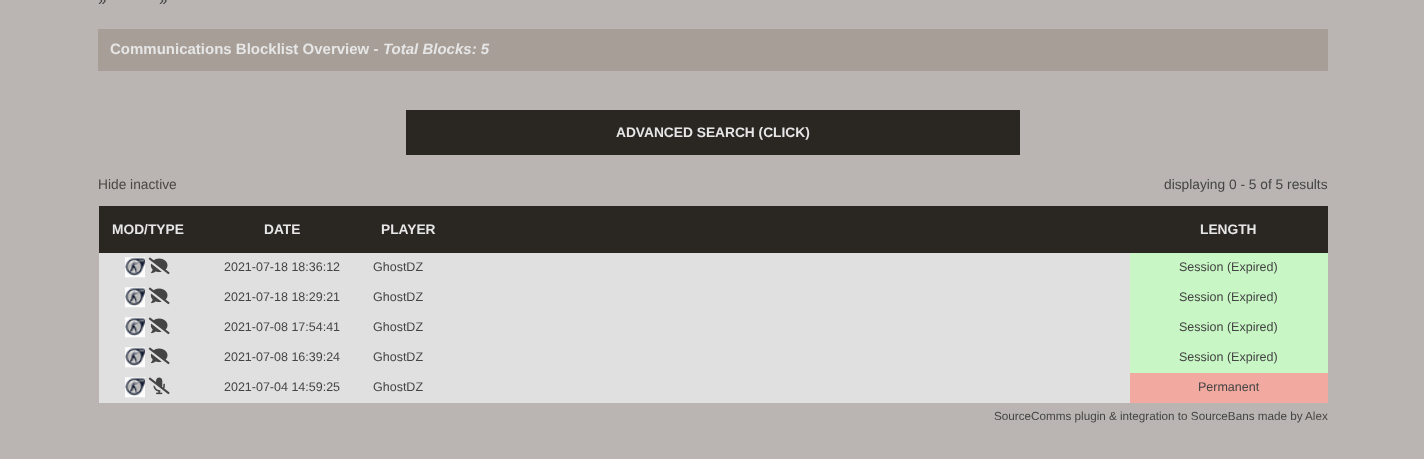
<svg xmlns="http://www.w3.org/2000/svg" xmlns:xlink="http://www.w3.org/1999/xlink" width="1424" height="459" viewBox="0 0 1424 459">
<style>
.cls-1{font:15px Liberation Sans;fill:#444444}
.cls-2{font:bold 15px Liberation Sans;fill:#e6e6e6}
.cls-3{font:italic bold 15px Liberation Sans;fill:#e6e6e6}
.cls-4{font:bold 13.75px Liberation Sans;fill:#e6e6e6}
.cls-5{font:13.75px Liberation Sans;fill:#4d4742}
.cls-6{font:13.75px Liberation Sans;fill:#444444}
.cls-7{font:12.5px Liberation Sans;fill:#444444}
.cls-8{font:11.7px Liberation Sans;fill:#444444}
.cls-9{font:11.7px Liberation Sans;fill:#4d4742}
</style>
<rect width="100%" height="100%" fill="#bab5b2"/>
<rect fill="#a69e97" x="98" y="29" width="1230" height="42"/>
<rect fill="#2a2723" x="406" y="110" width="614" height="45"/>
<rect fill="#2a2723" x="99" y="206" width="1229" height="47"/>
<rect fill="#e0e0e0" x="99" y="253" width="1031" height="30"/>
<image xlink:href="image0.png" x="125" y="257" width="20" height="21"/>
<image xlink:href="image1.png" x="148" y="257" width="22" height="18"/>
<rect fill="#c8f7c5" x="1130" y="253" width="198" height="120"/>
<rect fill="#e0e0e0" x="99" y="283" width="1031" height="30"/>
<image xlink:href="image0.png" x="125" y="287" width="20" height="21"/>
<image xlink:href="image1.png" x="148" y="287" width="22" height="18"/>
<rect fill="#e0e0e0" x="99" y="313" width="1031" height="30"/>
<image xlink:href="image0.png" x="125" y="317" width="20" height="21"/>
<image xlink:href="image1.png" x="148" y="317" width="22" height="18"/>
<rect fill="#e0e0e0" x="99" y="343" width="1031" height="30"/>
<image xlink:href="image0.png" x="125" y="347" width="20" height="21"/>
<image xlink:href="image1.png" x="148" y="347" width="22" height="18"/>
<rect fill="#e0e0e0" x="99" y="373" width="1031" height="30"/>
<image xlink:href="image0.png" x="125" y="377" width="20" height="21"/>
<image xlink:href="image2.png" x="148" y="377" width="22" height="18"/>
<rect fill="#f1a9a0" x="1130" y="373" width="198" height="30"/>
<text class="cls-1" x="98" y="5">»</text>
<text class="cls-1" x="159" y="5">»</text>
<text class="cls-2" x="110" y="54">Communications Blocklist Overview -</text>
<text class="cls-3" x="383" y="54">Total Blocks: 5</text>
<text class="cls-4" x="616" y="137">ADVANCED SEARCH (CLICK)</text>
<text class="cls-5" x="98" y="189">Hide inactive</text>
<text class="cls-6" x="1164" y="189">displaying 0 - 5 of 5 results</text>
<text class="cls-4" x="112" y="234">MOD/TYPE</text>
<text class="cls-4" x="264" y="234">DATE</text>
<text class="cls-4" x="381" y="234">PLAYER</text>
<text class="cls-4" x="1200" y="234">LENGTH</text>
<text class="cls-7" x="224" y="271">2021-07-18 18:36:12</text>
<text class="cls-7" x="373" y="271">GhostDZ</text>
<text class="cls-7" x="1179" y="271">Session (Expired)</text>
<text class="cls-7" x="224" y="301">2021-07-18 18:29:21</text>
<text class="cls-7" x="373" y="301">GhostDZ</text>
<text class="cls-7" x="1179" y="301">Session (Expired)</text>
<text class="cls-7" x="224" y="331">2021-07-08 17:54:41</text>
<text class="cls-7" x="373" y="331">GhostDZ</text>
<text class="cls-7" x="1179" y="331">Session (Expired)</text>
<text class="cls-7" x="224" y="361">2021-07-08 16:39:24</text>
<text class="cls-7" x="373" y="361">GhostDZ</text>
<text class="cls-7" x="1179" y="361">Session (Expired)</text>
<text class="cls-7" x="224" y="391">2021-07-04 14:59:25</text>
<text class="cls-7" x="373" y="391">GhostDZ</text>
<text class="cls-7" x="1198" y="391">Permanent</text>
<text class="cls-8" x="994" y="420">SourceComms plugin &amp; integration to SourceBans made by</text>
<text class="cls-9" x="1305" y="420">Alex</text>
</svg>
